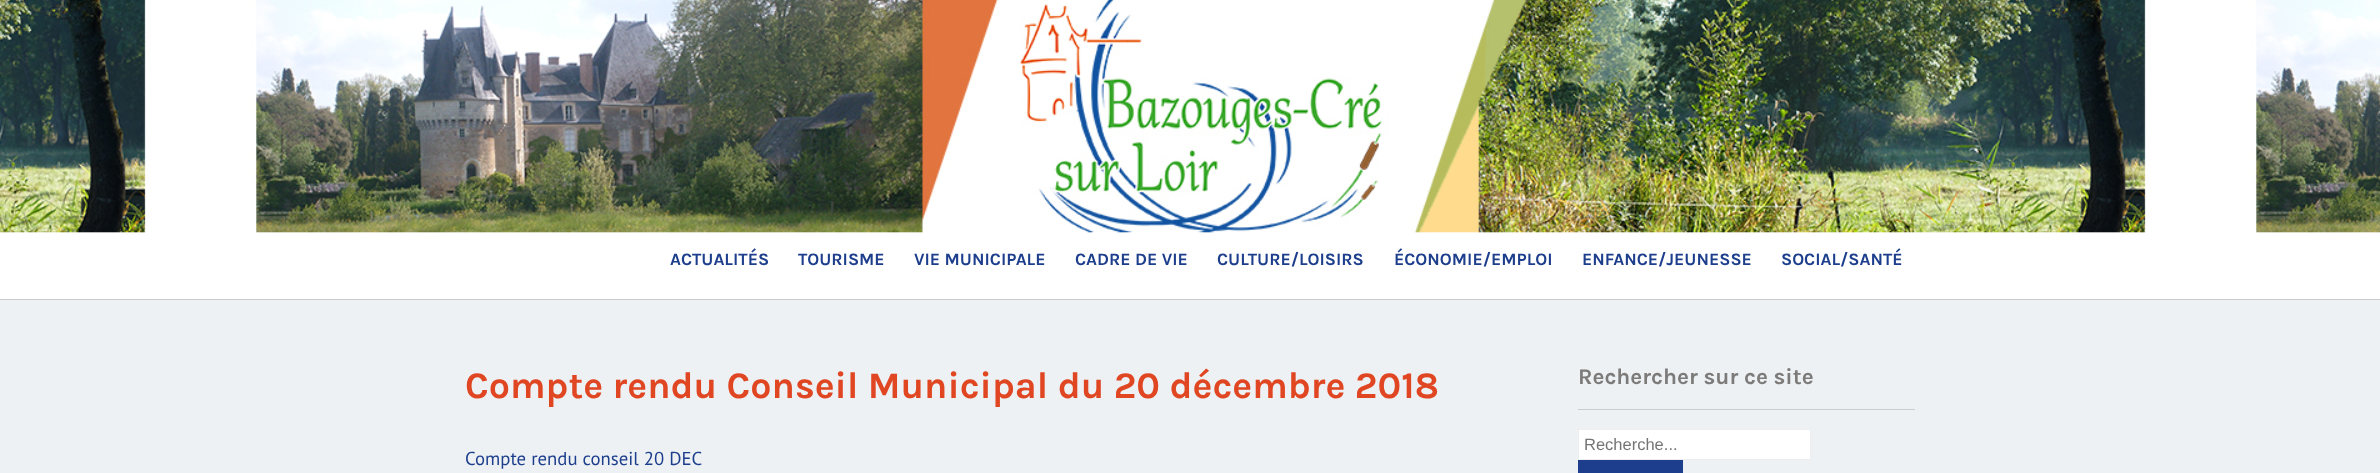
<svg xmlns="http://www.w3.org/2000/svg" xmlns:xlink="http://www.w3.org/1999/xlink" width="2380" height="473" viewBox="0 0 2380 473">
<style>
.cls-1{font:bold 17.5px Karla;fill:#1d3e8c}
.cls-2{font:bold 37.5px Karla;fill:#e04622}
.cls-3{font:18.75px PT Sans;fill:#1d3e8c}
.cls-4{font:bold 22.5px Karla;fill:#7c7b79}
.cls-5{font:16.5px Liberation Sans;fill:#757575}
</style>
<rect width="100%" height="100%" fill="#edf1f4"/>
<rect fill="#ffffff" x="0" y="233" width="2380" height="66"/>
<image xlink:href="image0.png" x="0" y="0" width="2380" height="233"/>
<rect fill="#cccccc" x="0" y="299" width="2380" height="1"/>
<rect fill="#cccccc" x="1578" y="409" width="337" height="1"/>
<rect fill="#ffffff" stroke="#eeeeee" x="1578.5" y="429.5" width="232" height="30"/>
<rect fill="#1d3e8c" x="1578" y="460" width="105" height="13"/>
<text class="cls-1" x="670" y="265">ACTUALITÉS</text>
<text class="cls-1" x="798" y="265">TOURISME</text>
<text class="cls-1" x="914" y="265">VIE MUNICIPALE</text>
<text class="cls-1" x="1075" y="265">CADRE DE VIE</text>
<text class="cls-1" x="1217" y="265">CULTURE/LOISIRS</text>
<text class="cls-1" x="1394" y="265">ÉCONOMIE/EMPLOI</text>
<text class="cls-1" x="1582" y="265">ENFANCE/JEUNESSE</text>
<text class="cls-1" x="1781" y="265">SOCIAL/SANTÉ</text>
<text class="cls-2" x="465" y="398">Compte rendu Conseil Municipal du 20 décembre 2018</text>
<text class="cls-3" x="465" y="465">Compte rendu conseil 20 DEC</text>
<text class="cls-4" x="1578" y="384">Rechercher sur ce site</text>
<text class="cls-5" x="1584" y="450">Recherche...</text>
</svg>
